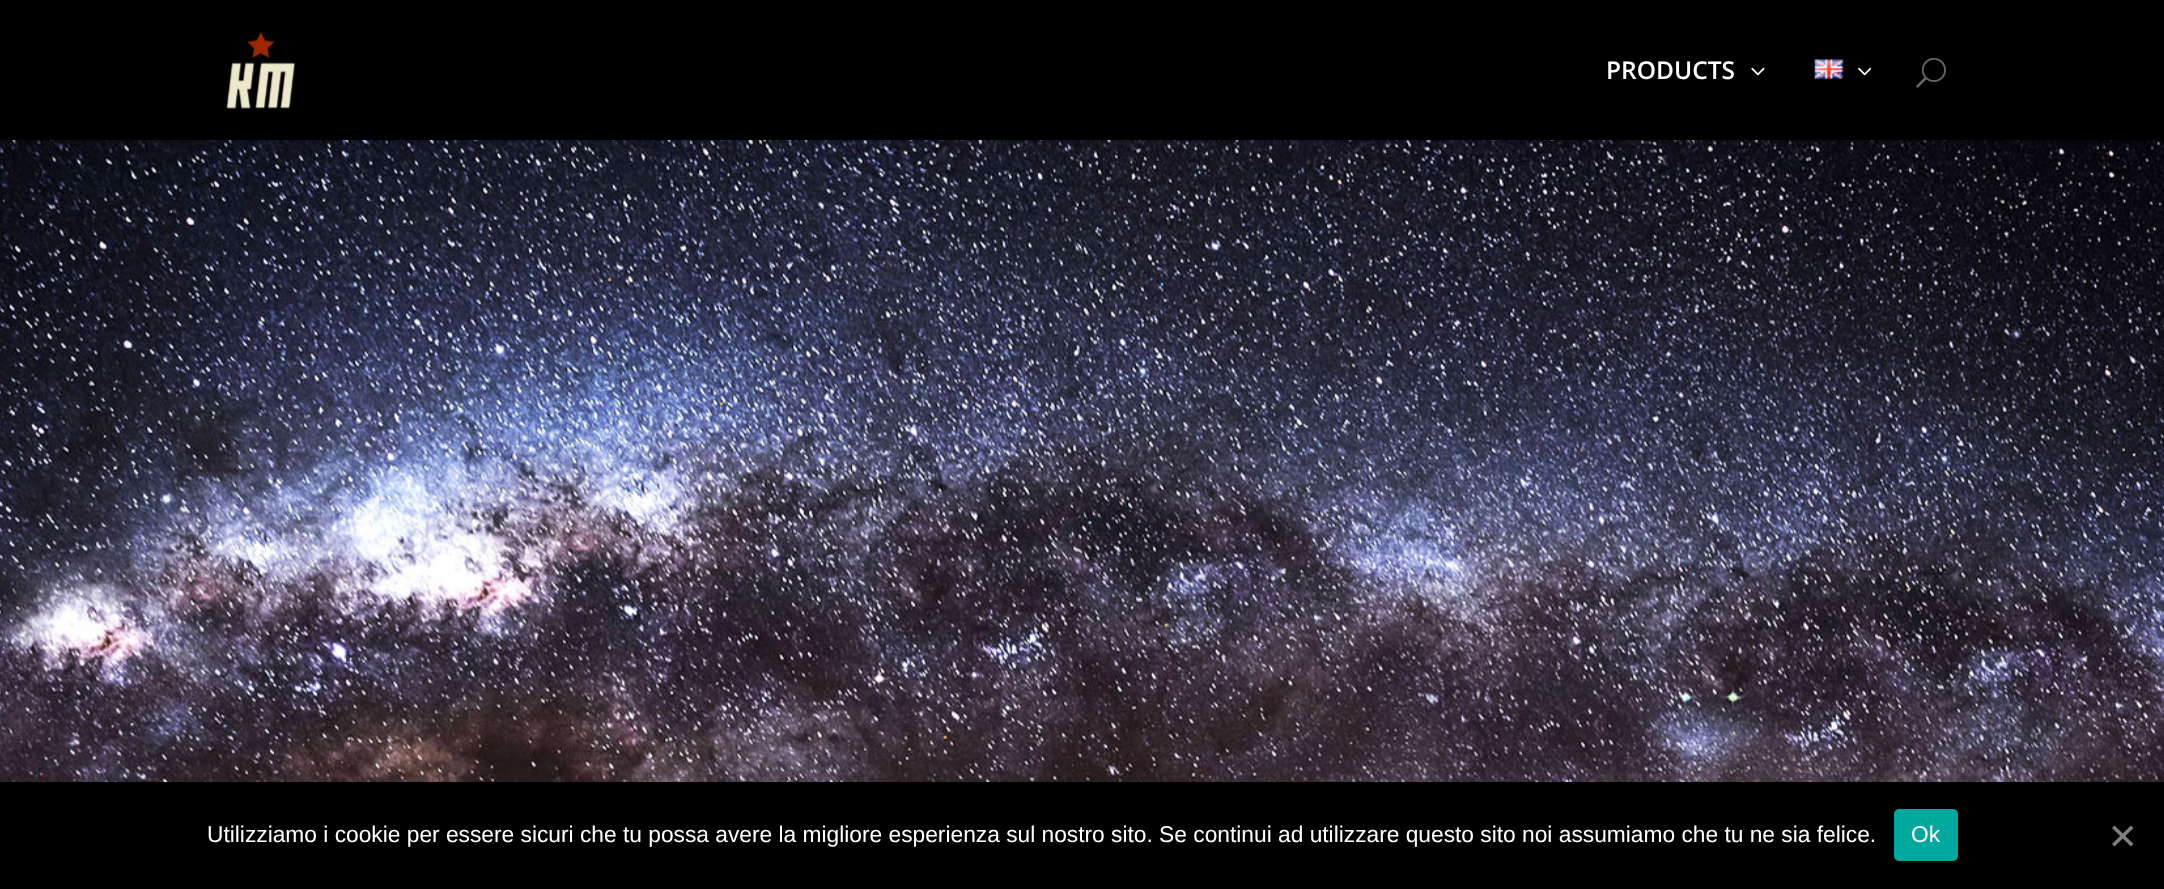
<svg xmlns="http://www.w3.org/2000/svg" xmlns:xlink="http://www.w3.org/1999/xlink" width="2164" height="889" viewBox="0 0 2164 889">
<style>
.cls-1{font:600 24.5px Open Sans;fill:#ffffff}
.cls-2{font:22.75px Liberation Sans;fill:#ffffff}
</style>
<rect width="100%" height="100%" fill="#ffffff"/>
<image xlink:href="image5.png" x="0" y="140" width="2164" height="642"/>
<path fill="#000000" fill-opacity="0.1" d="M0 140V142H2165V2V140Z"/>
<rect fill="#000000" x="0" y="0" width="2164" height="140"/>
<image xlink:href="image0.png" x="226" y="31" width="70" height="78"/>
<image xlink:href="image1.png" x="1751" y="67" width="14" height="9"/>
<image xlink:href="image2.png" x="1814" y="59" width="30" height="20"/>
<image xlink:href="image3.png" x="1858" y="67" width="14" height="9"/>
<image xlink:href="image4.png" x="1916" y="57" width="30" height="31"/>
<rect fill="#000000" x="0" y="782" width="2164" height="107"/>
<rect fill="#00a99d" x="1894" y="809" width="64" height="52" rx="5"/>
<path fill="#808080" d="M2131 825.5L2133.5 828L2114.5 846.5L2112 844Z"/>
<path fill="#808080" d="M2112 828L2114.5 825.5L2133.5 844L2131 846.5Z"/>
<text class="cls-1" x="1606" y="79">PRODUCTS</text>
<text class="cls-2" x="207" y="842">Utilizziamo i cookie per essere sicuri che tu possa avere la migliore esperienza sul nostro sito. Se continui ad utilizzare questo sito noi assumiamo che tu ne sia felice.</text>
<text class="cls-2" x="1911" y="842">Ok</text>
</svg>
